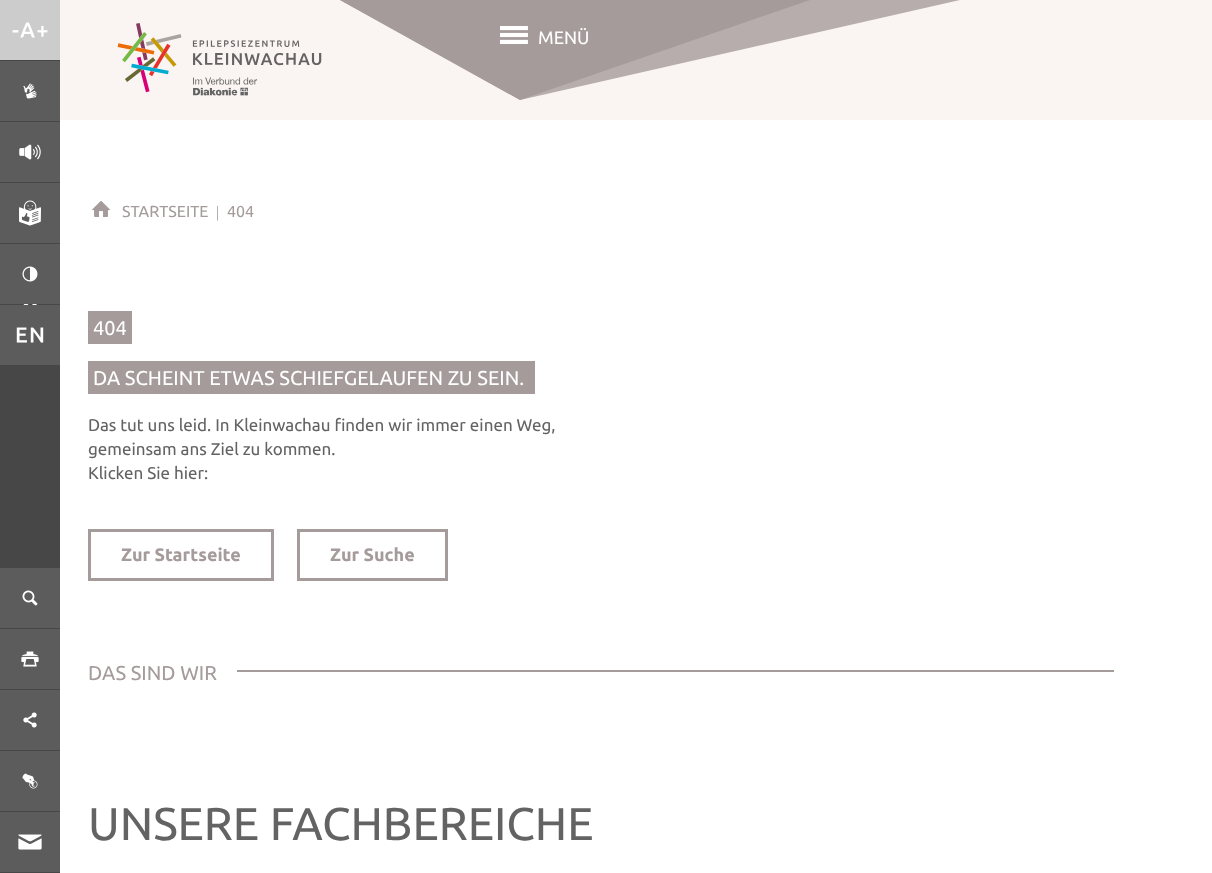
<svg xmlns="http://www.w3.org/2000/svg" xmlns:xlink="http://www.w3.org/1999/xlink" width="1212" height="873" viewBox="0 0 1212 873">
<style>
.cls-1{font:18px Ubuntu;fill:#ffffff}
.cls-2{font:16px Ubuntu;fill:#a59b9b}
.cls-3{font:16px Liberation Serif;fill:#a59b9b}
.cls-4{font:20px Ubuntu;fill:#ffffff}
.cls-5{font:17px Ubuntu;fill:#646363}
.cls-6{font:bold 18px Ubuntu;fill:#a59b9b}
.cls-7{font:20px Ubuntu;fill:#a59b9b}
.cls-8{font:46px Ubuntu;fill:#646363}
</style>
<rect width="100%" height="100%" fill="#ffffff"/>
<rect fill="#faf5f2" x="60" y="0" width="1152" height="120"/>
<image xlink:href="image0.png" x="117" y="23" width="205" height="73"/>
<path fill="#b6adac" d="M340 0H960L520 100Z"/>
<path fill="#a59b9b" d="M340 0H810L520 100Z"/>
<image xlink:href="image1.png" x="500" y="26" width="28" height="18"/>
<rect fill="#484747" x="0" y="60" width="60" height="813"/>
<rect fill="#cccccc" x="0" y="0" width="60" height="60"/>
<image xlink:href="image2.png" x="12" y="22" width="36" height="16"/>
<rect fill="#5c5c5c" x="0" y="61" width="60" height="60"/>
<image xlink:href="image3.png" x="23" y="83" width="14" height="16"/>
<rect fill="#5c5c5c" x="0" y="122" width="60" height="60"/>
<image xlink:href="image4.png" x="19" y="144" width="22" height="16"/>
<rect fill="#5c5c5c" x="0" y="183" width="60" height="60"/>
<image xlink:href="image5.png" x="19" y="200" width="22" height="26"/>
<rect fill="#5c5c5c" x="0" y="244" width="60" height="60"/>
<image xlink:href="image6.png" x="22" y="266" width="16" height="16"/>
<rect fill="#5c5c5c" x="0" y="305" width="60" height="60"/>
<image xlink:href="image7.png" x="16" y="327" width="28" height="16"/>
<image xlink:href="image8.png" x="23" y="304" width="14" height="1"/>
<rect fill="#5c5c5c" x="0" y="568" width="60" height="60"/>
<image xlink:href="image9.png" x="22" y="590" width="16" height="16"/>
<rect fill="#5c5c5c" x="0" y="629" width="60" height="60"/>
<image xlink:href="image10.png" x="21" y="651" width="18" height="16"/>
<rect fill="#5c5c5c" x="0" y="690" width="60" height="60"/>
<image xlink:href="image11.png" x="23" y="712" width="14" height="16"/>
<rect fill="#5c5c5c" x="0" y="751" width="60" height="60"/>
<image xlink:href="image12.png" x="22" y="773" width="16" height="16"/>
<rect fill="#5c5c5c" x="0" y="812" width="60" height="60"/>
<image xlink:href="image13.png" x="18" y="834" width="24" height="16"/>
<image xlink:href="image14.png" x="92" y="201" width="18" height="16"/>
<rect fill="#a59b9b" x="88" y="311" width="5" height="33"/>
<rect fill="#a59b9b" x="93" y="311" width="39" height="33"/>
<rect fill="#a59b9b" x="88" y="361" width="5" height="33"/>
<rect fill="#a59b9b" x="93" y="361" width="442" height="33"/>
<rect fill="none" stroke="#a59b9b" stroke-width="3" x="89.5" y="530.5" width="183" height="49"/>
<rect fill="none" stroke="#a59b9b" stroke-width="3" x="298.5" y="530.5" width="148" height="49"/>
<rect fill="#a59b9b" x="237" y="670" width="877" height="2"/>
<text class="cls-1" x="538" y="44">MENÜ</text>
<text class="cls-2" x="122" y="217">STARTSEITE</text>
<text class="cls-3" x="216" y="217">|</text>
<text class="cls-2" x="227" y="217">404</text>
<text class="cls-4" x="93" y="335">404</text>
<text class="cls-4" x="93" y="385">DA SCHEINT ETWAS SCHIEFGELAUFEN ZU SEIN.</text>
<text class="cls-5"><tspan x="88" y="431">Das tut uns leid. In Kleinwachau finden wir immer einen Weg,</tspan><tspan x="88" y="455">gemeinsam ans Ziel zu kommen.</tspan><tspan x="88" y="479">Klicken Sie hier:</tspan></text>
<text class="cls-6" x="121" y="561">Zur Startseite</text>
<text class="cls-6" x="330" y="561">Zur Suche</text>
<text class="cls-7" x="88" y="680">DAS SIND WIR</text>
<text class="cls-8" x="88" y="840">UNSERE FACHBEREICHE</text>
</svg>
